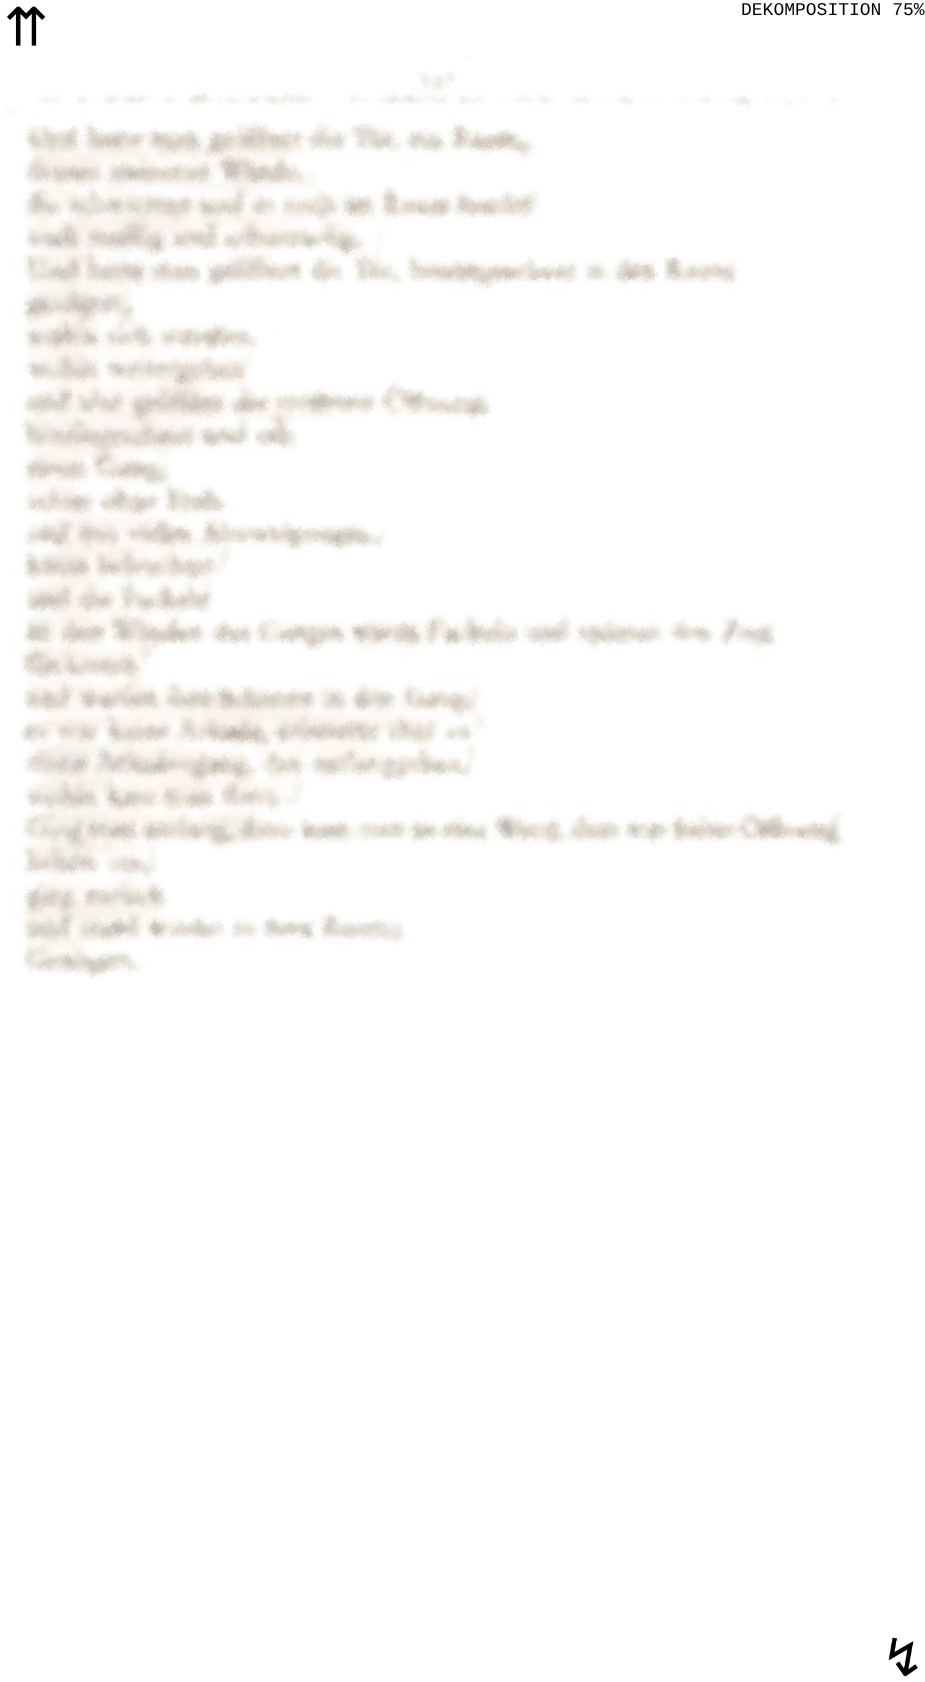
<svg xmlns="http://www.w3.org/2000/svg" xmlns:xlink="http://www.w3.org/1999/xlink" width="925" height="1682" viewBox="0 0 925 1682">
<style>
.cls-1{font:18px Liberation Mono;fill:#000000}
</style>
<rect width="100%" height="100%" fill="#ffffff"/>
<image xlink:href="image0.png" x="7" y="6" width="39" height="40"/>
<image xlink:href="image1.png" x="888" y="1637" width="30" height="40"/>
<image xlink:href="image2.png" x="4" y="56" width="842" height="923"/>
<text class="cls-1" x="741" y="15">DEKOMPOSITION 75%</text>
</svg>
